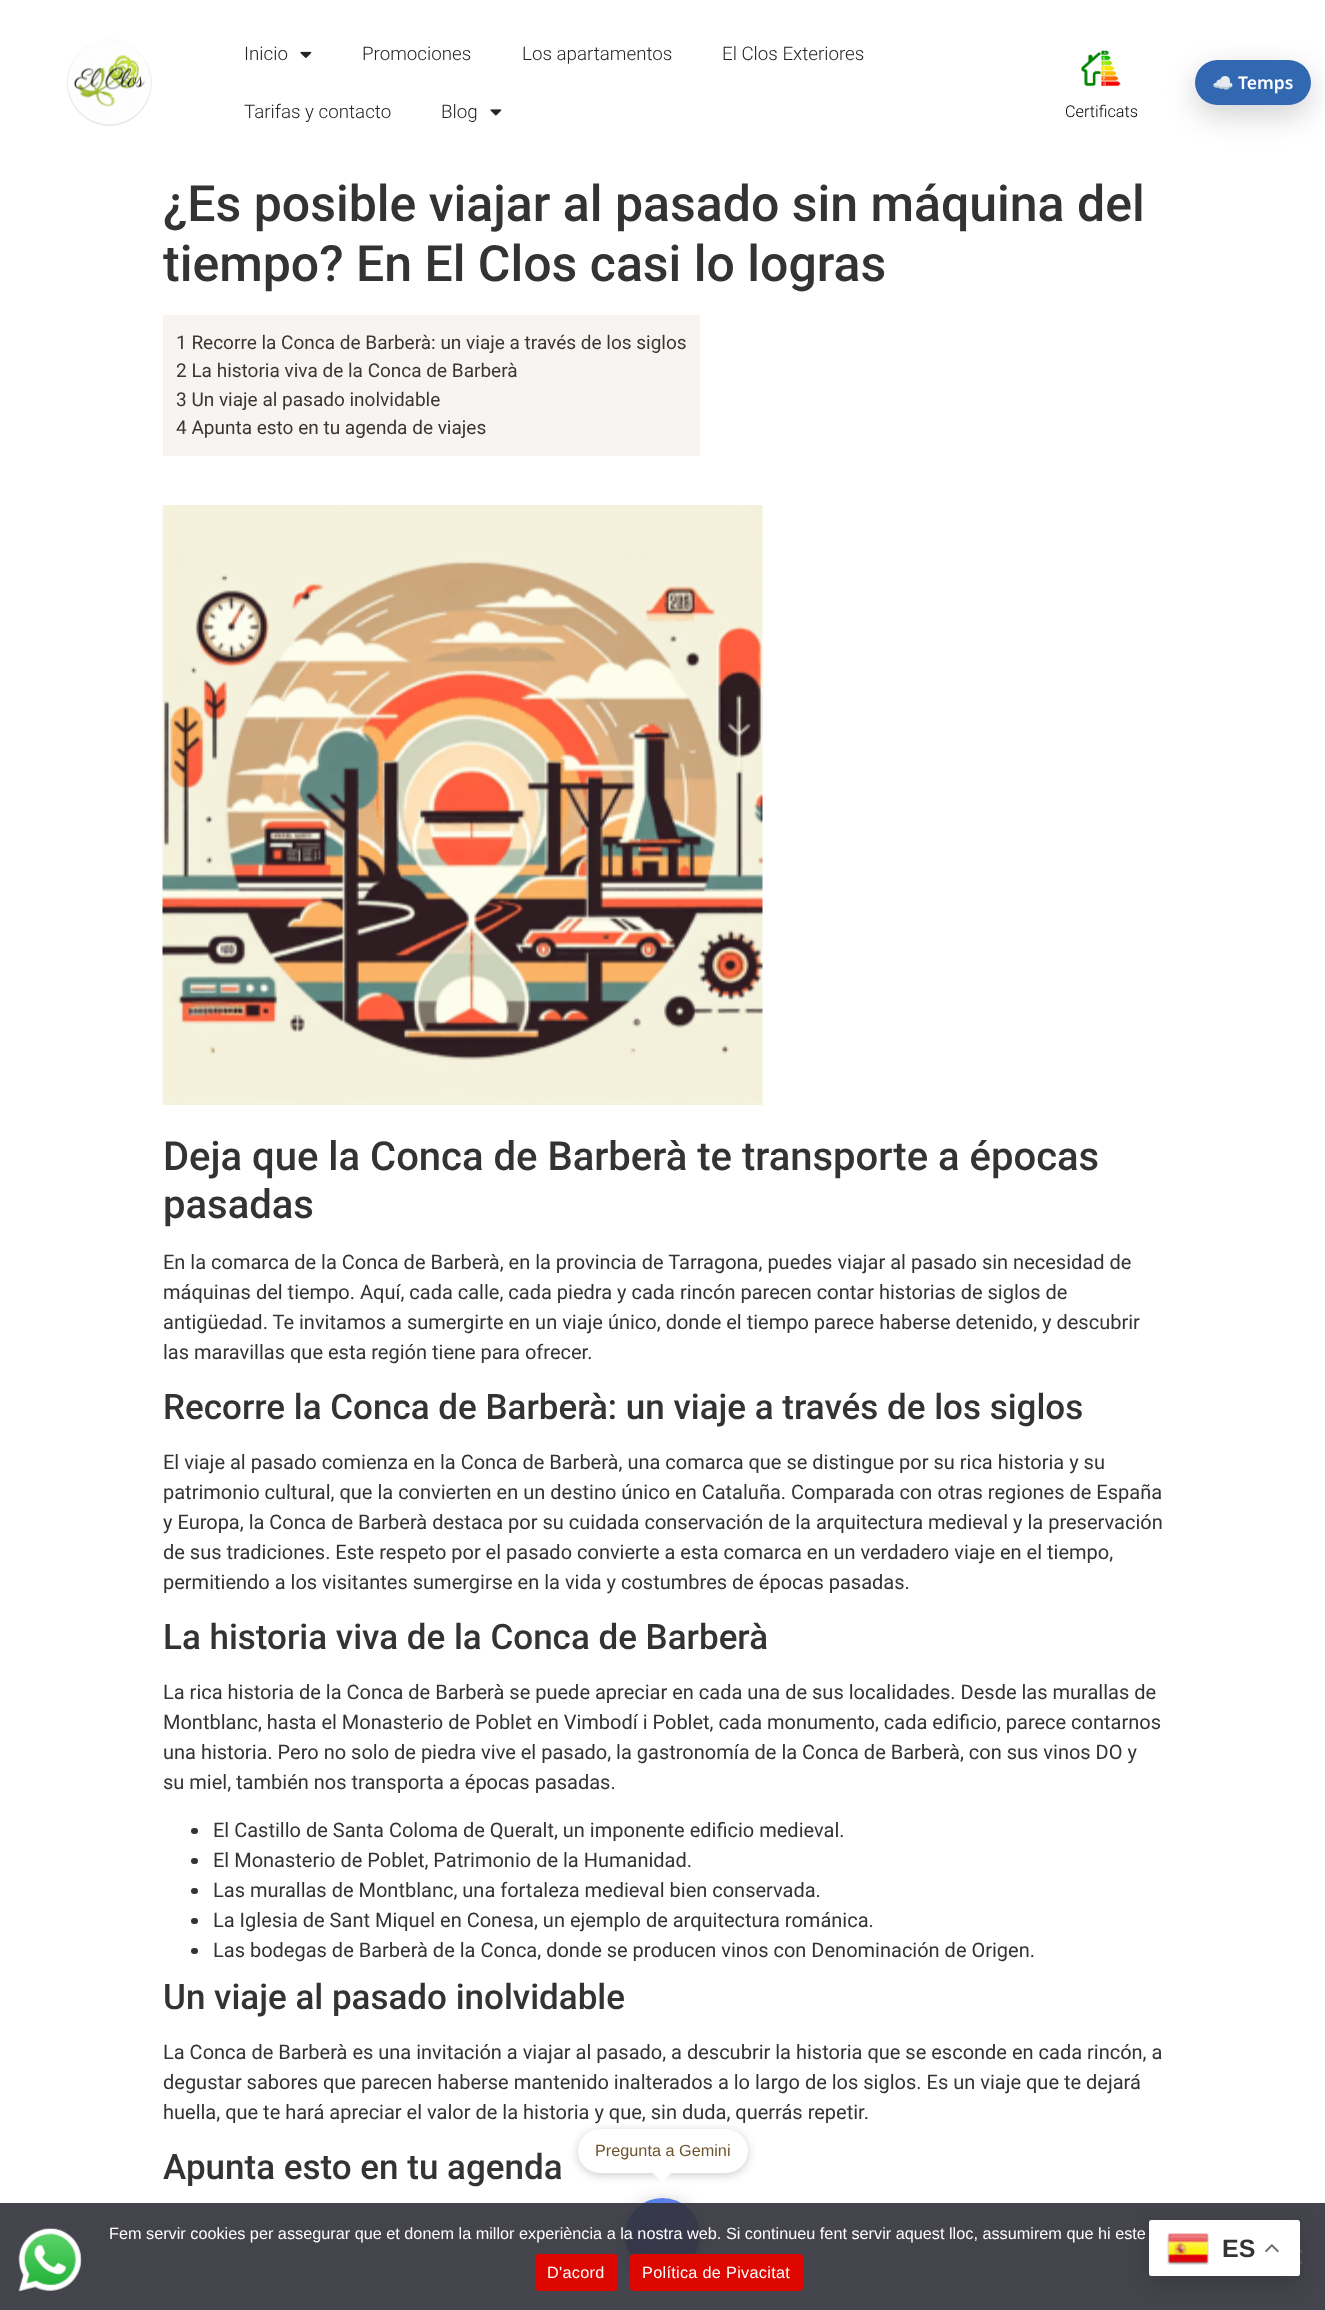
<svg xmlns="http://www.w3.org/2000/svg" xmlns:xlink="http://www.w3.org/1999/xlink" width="1325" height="2310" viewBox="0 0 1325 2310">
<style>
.cls-1{font:300 18.75px Roboto;fill:#242424}
.cls-2{font:bold 17.5px Noto Color Emoji;fill:#ffffff}
.cls-3{font:600 17.5px Noto Sans;fill:#ffffff}
.cls-4{font:300 16.25px Roboto;fill:#000000}
.cls-5{font:500 50px Roboto;fill:#333333}
.cls-6{font:19px Roboto;fill:#3c3530}
.cls-7{font:500 40px Roboto;fill:#333333}
.cls-8{font:20px Roboto;fill:#333333}
.cls-9{font:500 35px Roboto;fill:#333333}
.cls-10{font:16.25px Liberation Sans;fill:#ffffff}
.cls-11{font:16.25px Liberation Sans;letter-spacing:0.3px;fill:#ffffff}
.cls-12{font:bold 25px Liberation Sans;fill:#333333}
.cls-13{font:16.25px Liberation Sans;fill:#6e522c}
</style>
<defs>
<linearGradient id="g1" gradientUnits="userSpaceOnUse" x1="625" y1="2198" x2="850" y2="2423"><stop offset="0" stop-color="#4285f4"/><stop offset="0.33" stop-color="#9b72cb"/><stop offset="0.67" stop-color="#34a853"/><stop offset="1" stop-color="#fbbc04"/></linearGradient>
</defs>
<rect width="100%" height="100%" fill="#ffffff"/>
<image xlink:href="image0.png" x="67" y="39" width="85" height="87"/>
<image xlink:href="image1.png" x="300" y="51" width="12" height="7"/>
<image xlink:href="image2.png" x="490" y="109" width="12" height="7"/>
<rect fill="#000000" fill-opacity="0.18" filter="blur(15px)" x="1195" y="70" width="116" height="45" rx="22.5"/>
<rect fill="#3267b2" x="1195" y="60" width="116" height="45" rx="22.5"/>
<image xlink:href="image3.png" x="1080" y="50" width="41" height="37"/>
<rect fill="#f8f4f1" x="163" y="315" width="537" height="141"/>
<image xlink:href="image4.png" x="162" y="505" width="601" height="600"/>
<rect fill="#333333" x="191" y="1828" width="7" height="6" rx="3"/>
<rect fill="#333333" x="191" y="1858" width="7" height="6" rx="3"/>
<rect fill="#333333" x="191" y="1888" width="7" height="6" rx="3"/>
<rect fill="#333333" x="191" y="1918" width="7" height="6" rx="3"/>
<rect fill="#333333" x="191" y="1948" width="7" height="6" rx="3"/>
<rect fill="#000000" fill-opacity="0.3" filter="blur(9px)" x="625" y="2203" width="75" height="75" rx="37.5"/>
<circle fill="url(#g1)" cx="662.5" cy="2235.5" r="37.5"/>
<rect fill="#32323a" fill-opacity="0.91" x="0" y="2203" width="1325" height="107"/>
<image xlink:href="image5.png" x="18" y="2228" width="64" height="64"/>
<path fill="#626266" d="M1300.5 2249.5L1302.5 2251L1289.5 2264.5L1287.5 2262.5Z"/>
<path fill="#626266" d="M1287.5 2251L1289.5 2249.5L1302.5 2262.5L1300.5 2264.5Z"/>
<rect fill="#dd0700" x="535" y="2254" width="83" height="37" rx="4"/>
<rect fill="#dd0700" x="630" y="2254" width="173" height="37" rx="4"/>
<rect fill="#000000" fill-opacity="0.15" filter="blur(9.5px)" x="1149" y="2226" width="151" height="57" rx="2.5"/>
<rect fill="#ffffff" x="1149" y="2220" width="151" height="56" rx="2.5"/>
<image xlink:href="image6.png" x="1167" y="2233" width="42" height="32"/>
<image xlink:href="image7.png" x="1265" y="2244" width="14" height="9"/>
<rect fill="#000000" fill-opacity="0.2" filter="blur(5px)" x="578" y="2131" width="170" height="44" rx="22"/>
<rect fill="#ffffff" x="578" y="2129" width="170" height="44" rx="22"/>
<path fill="#ffffff" d="M652 2172.5H672L662 2182.5Z"/>
<text class="cls-1" x="244" y="60">Inicio</text>
<text class="cls-1" x="362" y="60">Promociones</text>
<text class="cls-1" x="522" y="60">Los apartamentos</text>
<text class="cls-1" x="722" y="60">El Clos Exteriores</text>
<text class="cls-1" x="244" y="118">Tarifas y contacto</text>
<text class="cls-1" x="441" y="118">Blog</text>
<text class="cls-2" x="1212" y="89">☁️</text>
<text class="cls-3" x="1238" y="89">Temps</text>
<text class="cls-4" x="1065" y="117">Certificats</text>
<text class="cls-5"><tspan x="163" y="221">¿Es posible viajar al pasado sin máquina del</tspan><tspan x="163" y="281">tiempo? En El Clos casi lo logras</tspan></text>
<text class="cls-6"><tspan x="176" y="349">1 Recorre la Conca de Barberà: un viaje a través de los siglos</tspan><tspan x="176" y="377">2 La historia viva de la Conca de Barberà</tspan><tspan x="176" y="406">3 Un viaje al pasado inolvidable</tspan><tspan x="176" y="434">4 Apunta esto en tu agenda de viajes</tspan></text>
<text class="cls-7"><tspan x="163" y="1170">Deja que la Conca de Barberà te transporte a épocas</tspan><tspan x="163" y="1218">pasadas</tspan></text>
<text class="cls-8"><tspan x="163" y="1269">En la comarca de la Conca de Barberà, en la provincia de Tarragona, puedes viajar al pasado sin necesidad de</tspan><tspan x="163" y="1299">máquinas del tiempo. Aquí, cada calle, cada piedra y cada rincón parecen contar historias de siglos de</tspan><tspan x="163" y="1329">antigüedad. Te invitamos a sumergirte en un viaje único, donde el tiempo parece haberse detenido, y descubrir</tspan><tspan x="163" y="1359">las maravillas que esta región tiene para ofrecer.</tspan></text>
<text class="cls-9" x="163" y="1419">Recorre la Conca de Barberà: un viaje a través de los siglos</text>
<text class="cls-8"><tspan x="163" y="1469">El viaje al pasado comienza en la Conca de Barberà, una comarca que se distingue por su rica historia y su</tspan><tspan x="163" y="1499">patrimonio cultural, que la convierten en un destino único en Cataluña. Comparada con otras regiones de España</tspan><tspan x="163" y="1529">y Europa, la Conca de Barberà destaca por su cuidada conservación de la arquitectura medieval y la preservación</tspan><tspan x="163" y="1559">de sus tradiciones. Este respeto por el pasado convierte a esta comarca en un verdadero viaje en el tiempo,</tspan><tspan x="163" y="1589">permitiendo a los visitantes sumergirse en la vida y costumbres de épocas pasadas.</tspan></text>
<text class="cls-9" x="163" y="1649">La historia viva de la Conca de Barberà</text>
<text class="cls-8"><tspan x="163" y="1699">La rica historia de la Conca de Barberà se puede apreciar en cada una de sus localidades. Desde las murallas de</tspan><tspan x="163" y="1729">Montblanc, hasta el Monasterio de Poblet en Vimbodí i Poblet, cada monumento, cada edificio, parece contarnos</tspan><tspan x="163" y="1759">una historia. Pero no solo de piedra vive el pasado, la gastronomía de la Conca de Barberà, con sus vinos DO y</tspan><tspan x="163" y="1789">su miel, también nos transporta a épocas pasadas.</tspan></text>
<text class="cls-8"><tspan x="213" y="1837">El Castillo de Santa Coloma de Queralt, un imponente edificio medieval.</tspan><tspan x="213" y="1867">El Monasterio de Poblet, Patrimonio de la Humanidad.</tspan><tspan x="213" y="1897">Las murallas de Montblanc, una fortaleza medieval bien conservada.</tspan><tspan x="213" y="1927">La Iglesia de Sant Miquel en Conesa, un ejemplo de arquitectura románica.</tspan><tspan x="213" y="1957">Las bodegas de Barberà de la Conca, donde se producen vinos con Denominación de Origen.</tspan></text>
<text class="cls-9" x="163" y="2009">Un viaje al pasado inolvidable</text>
<text class="cls-8"><tspan x="163" y="2059">La Conca de Barberà es una invitación a viajar al pasado, a descubrir la historia que se esconde en cada rincón, a</tspan><tspan x="163" y="2089">degustar sabores que parecen haberse mantenido inalterados a lo largo de los siglos. Es un viaje que te dejará</tspan><tspan x="163" y="2119">huella, que te hará apreciar el valor de la historia y que, sin duda, querrás repetir.</tspan></text>
<text class="cls-9" x="163" y="2179">Apunta esto en tu agenda</text>
<text class="cls-10" x="109" y="2239">Fem servir cookies per assegurar que et donem la millor experiència a la nostra web. Si continueu fent servir aquest lloc, assumirem que hi este</text>
<text class="cls-11" x="547" y="2278">D'acord</text>
<text class="cls-11" x="642" y="2278">Política de Pivacitat</text>
<text class="cls-12" x="1222" y="2257">ES</text>
<text class="cls-13" x="595" y="2156">Pregunta a Gemini</text>
</svg>
